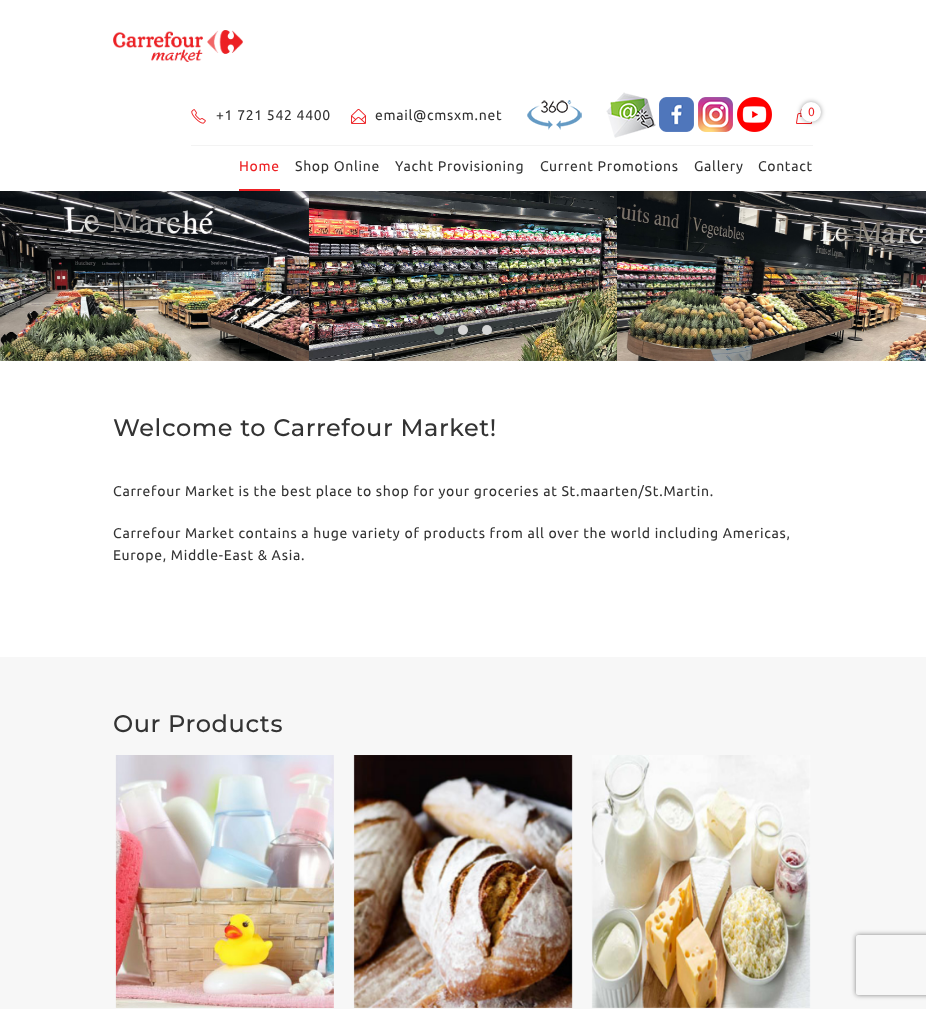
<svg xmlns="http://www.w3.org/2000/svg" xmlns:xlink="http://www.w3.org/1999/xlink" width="926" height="1009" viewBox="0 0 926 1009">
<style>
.cls-1{font:14px Ubuntu;letter-spacing:0.7px;fill:#333333}
.cls-2{font:12px Ubuntu;fill:#ed2124}
.cls-3{font:14px Ubuntu;letter-spacing:0.7px;fill:#ed2124}
.cls-4{font:500 24px Montserrat;letter-spacing:0.6px;fill:#333333}
</style>
<defs>
<clipPath id="clip1"><path d="M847 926H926V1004H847ZM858 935H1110C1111 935 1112 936 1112 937V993C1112 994 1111 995 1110 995H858C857 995 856 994 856 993V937C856 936 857 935 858 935Z" clip-rule="evenodd"/></clipPath>
</defs>
<rect width="100%" height="100%" fill="#ffffff"/>
<image xlink:href="image9.png" x="0" y="191" width="309" height="170"/>
<image xlink:href="image10.png" x="308" y="191" width="310" height="170"/>
<image xlink:href="image11.png" x="617" y="191" width="309" height="170"/>
<image xlink:href="image12.png" x="925" y="199" width="1" height="162"/>
<rect fill="#000000" fill-opacity="0.2" filter="blur(4px)" x="0" y="1" width="926" height="191"/>
<rect fill="#ffffff" x="0" y="0" width="926" height="191"/>
<image xlink:href="image0.png" x="113" y="30" width="130" height="32"/>
<rect fill="#f3f3f3" x="191" y="145" width="622" height="1"/>
<image xlink:href="image1.png" x="191" y="109" width="15" height="15"/>
<image xlink:href="image2.png" x="351" y="108" width="15" height="16"/>
<image xlink:href="image3.png" x="527" y="100" width="55" height="30"/>
<image xlink:href="image4.png" x="606" y="92" width="50" height="46"/>
<image xlink:href="image5.png" x="659" y="97" width="35" height="35"/>
<image xlink:href="image6.png" x="698" y="97" width="35" height="35"/>
<image xlink:href="image7.png" x="737" y="97" width="35" height="35"/>
<image xlink:href="image8.png" x="796" y="108" width="16" height="16"/>
<rect fill="#000000" fill-opacity="0.4" filter="blur(2.5px)" x="801" y="102" width="20" height="20" rx="10"/>
<circle fill="#ffffff" cx="811" cy="112" r="10"/>
<rect fill="#ed2124" x="239" y="189" width="41" height="2"/>
<rect fill="#000000" fill-opacity="0.28" filter="blur(5px)" x="434" y="325" width="10" height="10" rx="5"/>
<circle fill="#869791" cx="439" cy="330" r="5"/>
<rect fill="#000000" fill-opacity="0.28" filter="blur(5px)" x="458" y="325" width="10" height="10" rx="5"/>
<circle fill="#d6d6d6" cx="463" cy="330" r="5"/>
<rect fill="#000000" fill-opacity="0.28" filter="blur(5px)" x="482" y="325" width="10" height="10" rx="5"/>
<circle fill="#d6d6d6" cx="487" cy="330" r="5"/>
<rect fill="#f7f7f7" x="0" y="657" width="926" height="352"/>
<image xlink:href="image13.png" x="115" y="755" width="219" height="253"/>
<image xlink:href="image14.png" x="353" y="755" width="220" height="253"/>
<image xlink:href="image15.png" x="591" y="755" width="220" height="253"/>
<g clip-path="url(#clip1)">
<rect fill="#808080" filter="blur(2.5px)" x="856" y="935" width="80" height="60" rx="2"/>
</g>
<text class="cls-1" x="216" y="120">+1 721 542 4400</text>
<text class="cls-1" x="375" y="120">email@cmsxm.net</text>
<text class="cls-2" x="808" y="116">0</text>
<text class="cls-3" x="239" y="171">Home</text>
<text class="cls-1" x="295" y="171">Shop Online</text>
<text class="cls-1" x="395" y="171">Yacht Provisioning</text>
<text class="cls-1" x="540" y="171">Current Promotions</text>
<text class="cls-1" x="694" y="171">Gallery</text>
<text class="cls-1" x="758" y="171">Contact</text>
<text class="cls-4" x="113" y="436">Welcome to Carrefour Market!</text>
<text class="cls-1" x="113" y="496">Carrefour Market is the best place to shop for your groceries at St.maarten/St.Martin.</text>
<text class="cls-1"><tspan x="113" y="538">Carrefour Market contains a huge variety of products from all over the world including Americas,</tspan><tspan x="113" y="560">Europe, Middle-East &amp; Asia.</tspan></text>
<text class="cls-4" x="113" y="732">Our Products</text>
</svg>
